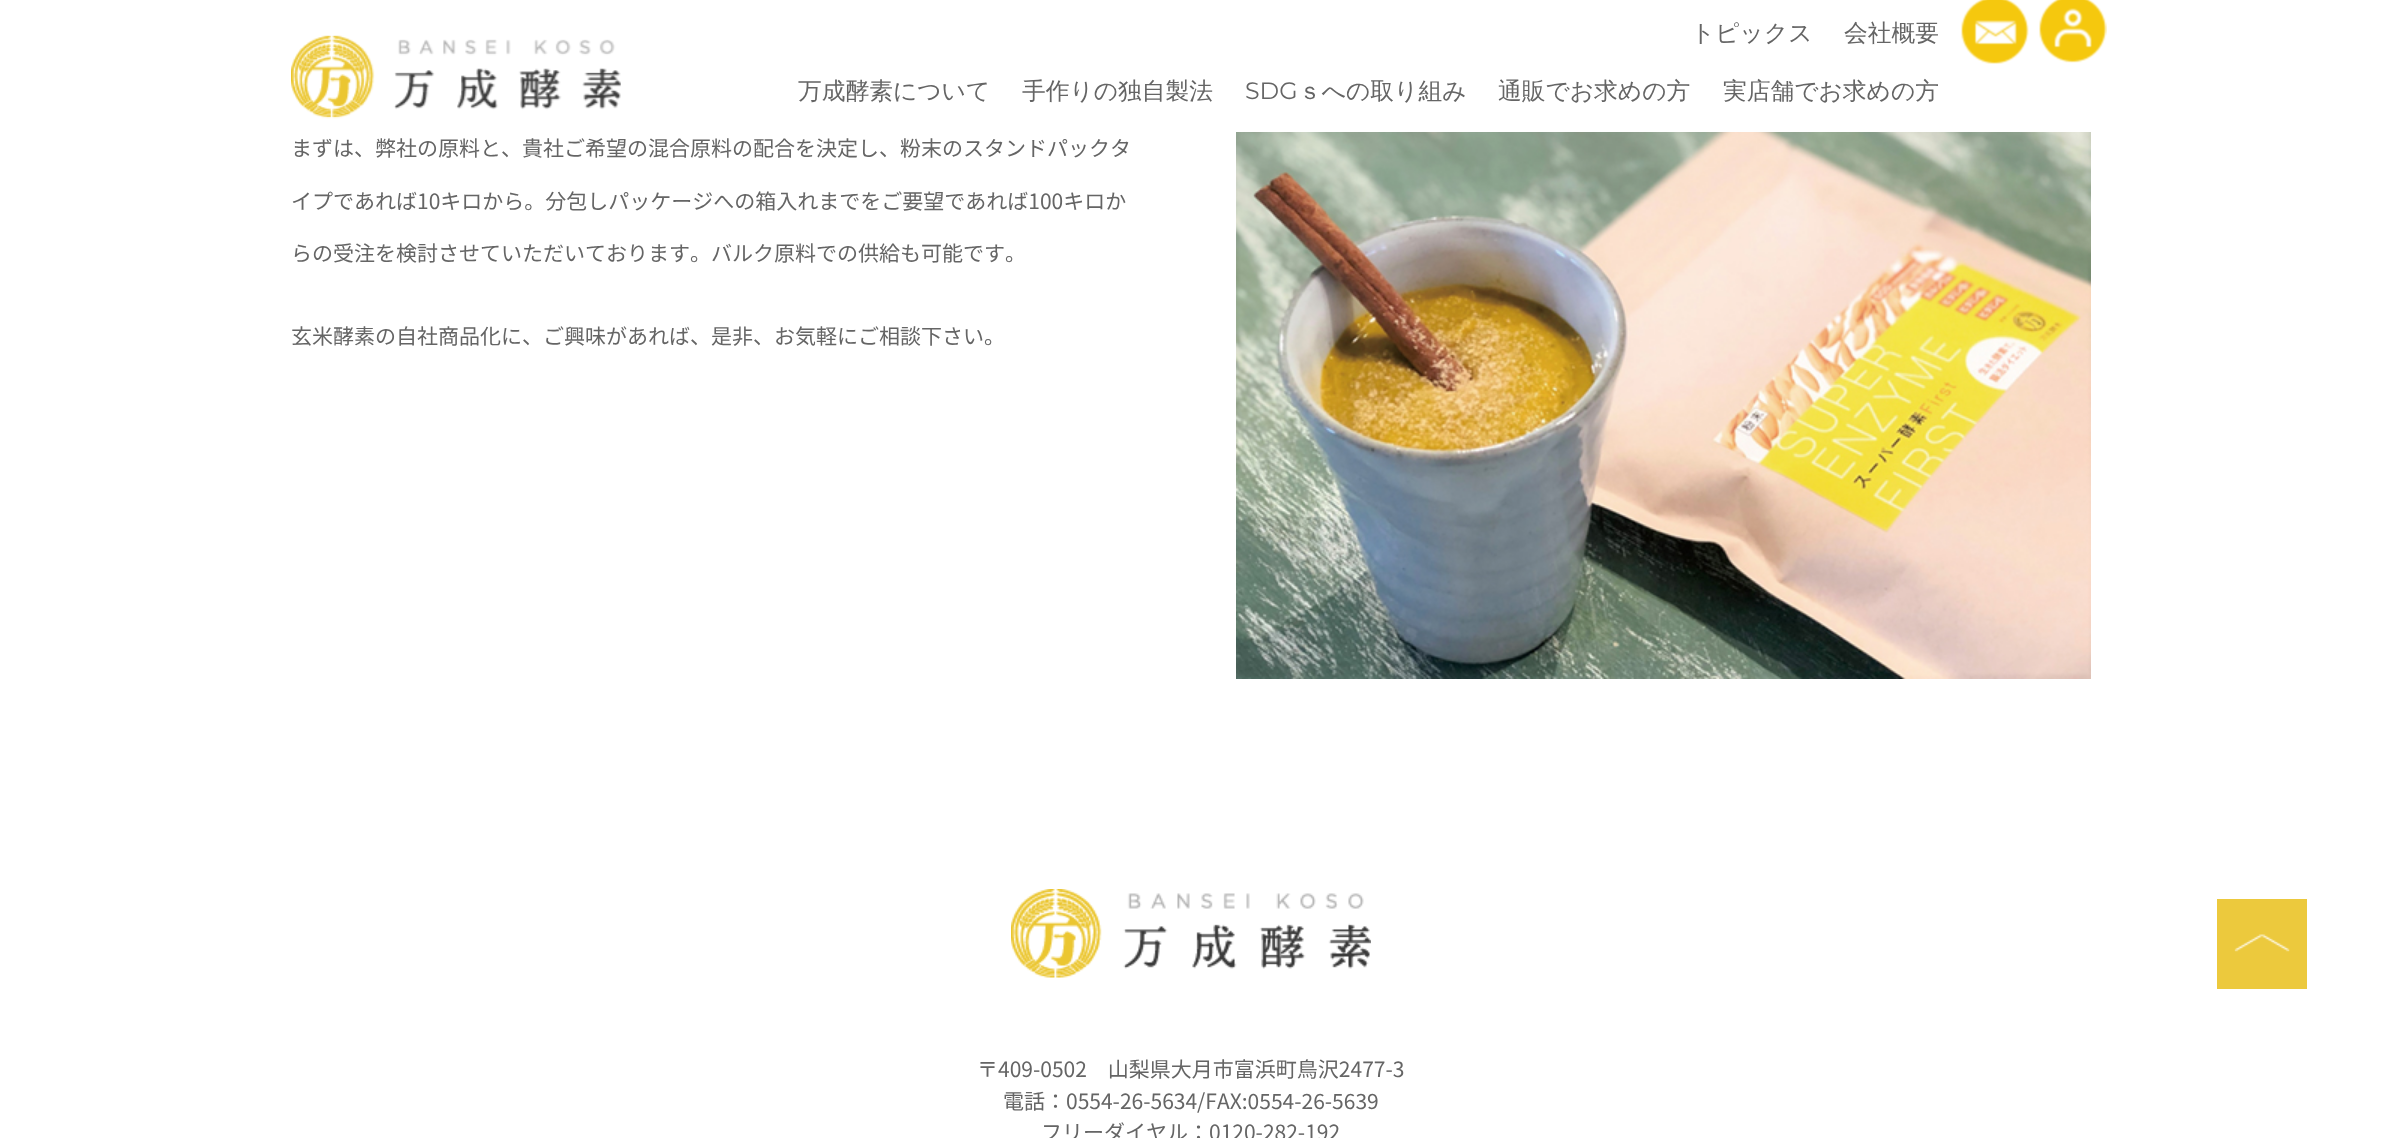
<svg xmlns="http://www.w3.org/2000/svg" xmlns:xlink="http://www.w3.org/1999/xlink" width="2381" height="1138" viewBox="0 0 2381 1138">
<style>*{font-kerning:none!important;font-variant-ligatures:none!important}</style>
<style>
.cls-1{font:500 23.75px WenQuanYi Zen Hei;fill:#656565}
.cls-2{font:100 23.75px Montserrat;fill:#656565}
.cls-3{font:100 21px Noto Sans JP;fill:#656565}
</style>
<rect width="100%" height="100%" fill="#ffffff"/>
<image xlink:href="image0.png" x="291" y="35" width="330" height="84"/>
<image xlink:href="image1.png" x="1961" y="0" width="68" height="64"/>
<image xlink:href="image2.png" x="2039" y="0" width="68" height="63"/>
<image xlink:href="image3.png" x="1236" y="132" width="855" height="547"/>
<rect fill="#ecc93d" x="2217" y="899" width="90" height="90"/>
<image xlink:href="image4.png" x="2234" y="934" width="56" height="18"/>
<image xlink:href="image5.png" x="1011" y="889" width="360" height="89"/>
<text class="cls-1" x="1691" y="41">トピックス</text>
<text class="cls-1" x="1844" y="41">会社概要</text>
<text class="cls-1" x="798" y="99">万成酵素について</text>
<text class="cls-1" x="1022" y="99">手作りの独自製法</text>
<text class="cls-2" x="1245" y="99">SDG</text>
<text class="cls-1" x="1298" y="99">ｓへの取り組み</text>
<text class="cls-1" x="1498" y="99">通販でお求めの方</text>
<text class="cls-1" x="1723" y="99">実店舗でお求めの方</text>
<text class="cls-3" x="291" y="156">まずは、弊社の原料と、貴社ご希望の混合原料の配合を決定し、粉末のスタンドパックタ</text>
<text class="cls-3" x="291" y="209">イプであれば10キロから。分包しパッケージへの箱入れまでをご要望であれば100キロか</text>
<text class="cls-3" x="291" y="261">らの受注を検討させていただいております。バルク原料での供給も可能です</text>
<text class="cls-3" x="1005" y="261">。</text>
<text class="cls-3" x="291" y="344">玄米酵素の自社商品化に、ご興味があれば、是非、お気軽にご相談下さい。</text>
<text class="cls-3" x="977" y="1077">〒409-0502　山梨県大月市富浜町鳥沢2477-3</text>
<text class="cls-3" x="1003" y="1109">電話：0554-26-5634/FAX:0554-26-5639</text>
<text class="cls-3" x="1041" y="1140">フリーダイヤル：0120-282-192</text>
</svg>
